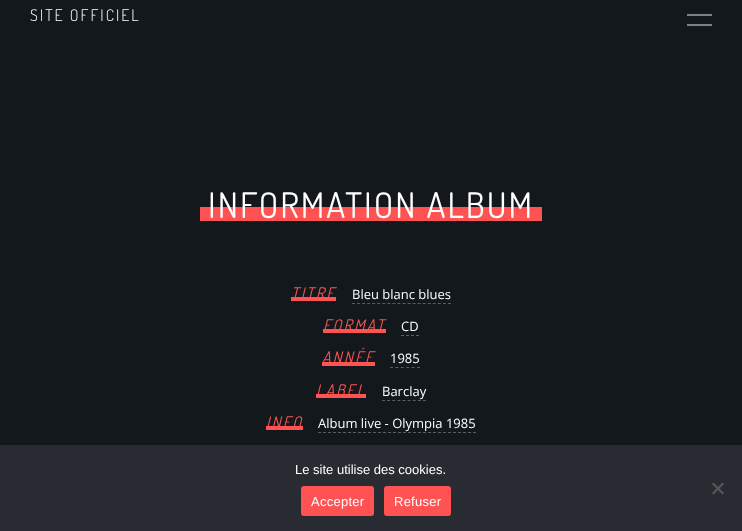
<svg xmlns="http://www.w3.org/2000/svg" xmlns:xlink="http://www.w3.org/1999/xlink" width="742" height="531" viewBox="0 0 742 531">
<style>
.cls-1{font:300 16px Dosis;letter-spacing:2px;fill:#ffffff}
.cls-2{font:35.25px Dosis;letter-spacing:2px;fill:#ffffff}
.cls-3{font:italic 16px Dosis;letter-spacing:2px;fill:#ff5252}
.cls-4{font:13px Open Sans;fill:#ffffff}
.cls-5{font:13px Liberation Sans;fill:#ffffff}
.cls-6{font:13px Liberation Sans;letter-spacing:0.25px;fill:#ffffff}
</style>
<rect width="100%" height="100%" fill="#13181d"/>
<rect fill="#808080" x="687" y="14" width="25" height="2"/>
<rect fill="#808080" x="687" y="24" width="25" height="2"/>
<rect fill="#ff5252" x="200" y="207" width="342" height="14"/>
<rect fill="#ff5252" x="291" y="297" width="45" height="4"/>
<path fill="none" stroke="#5a5d61" stroke-dasharray="3 2.05" d="M352 303.5H451"/>
<rect fill="#ff5252" x="323" y="329" width="63" height="4"/>
<path fill="none" stroke="#5a5d61" stroke-dasharray="3 2" d="M401 335.5H419"/>
<rect fill="#ff5252" x="322" y="362" width="53" height="4"/>
<path fill="none" stroke="#5a5d61" stroke-dasharray="3 2.4" d="M390 367.5H420"/>
<rect fill="#ff5252" x="316" y="394" width="50" height="4"/>
<path fill="none" stroke="#5a5d61" stroke-dasharray="3 2.12" d="M382 400.5H426"/>
<rect fill="#ff5252" x="266" y="426" width="37" height="4"/>
<path fill="none" stroke="#5a5d61" stroke-dasharray="3 2" d="M318 432.5H476"/>
<rect fill="#292b32" x="0" y="445" width="742" height="86"/>
<path fill="#555659" d="M722.5 482.5L724 484L713.5 494.5L712 493Z"/>
<path fill="#555659" d="M712 484L713.5 482.5L724 493L722.5 494.5Z"/>
<rect fill="#ff5252" x="301" y="486" width="73" height="30" rx="3"/>
<rect fill="#ff5252" x="384" y="486" width="67" height="30" rx="3"/>
<text class="cls-1" x="30" y="21">SITE OFFICIEL</text>
<text class="cls-2" x="208" y="218">INFORMATION ALBUM</text>
<text class="cls-3" x="291" y="299">TITRE</text>
<text class="cls-4" x="352" y="299">Bleu blanc blues</text>
<text class="cls-3" x="323" y="331">FORMAT</text>
<text class="cls-4" x="401" y="331">CD</text>
<text class="cls-3" x="322" y="363">ANNÉE</text>
<text class="cls-4" x="390" y="363">1985</text>
<text class="cls-3" x="316" y="396">LABEL</text>
<text class="cls-4" x="382" y="396">Barclay</text>
<text class="cls-3" x="266" y="428">INFO</text>
<text class="cls-4" x="318" y="428">Album live - Olympia 1985</text>
<text class="cls-5" x="295" y="474">Le site utilise des cookies.</text>
<text class="cls-6" x="311" y="506">Accepter</text>
<text class="cls-6" x="394" y="506">Refuser</text>
</svg>
